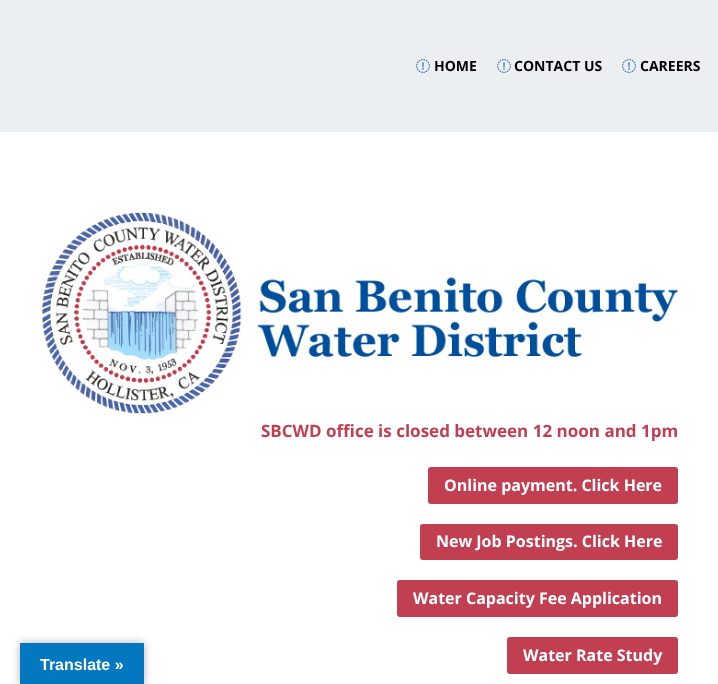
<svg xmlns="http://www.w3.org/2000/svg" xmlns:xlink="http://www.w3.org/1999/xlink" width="718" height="684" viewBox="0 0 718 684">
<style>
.cls-1{font:bold 16px Liberation Sans;fill:#ffffff}
.cls-2{font:bold 14px Open Sans;fill:#000000}
.cls-3{font:bold 17px Open Sans;fill:#c23f52}
.cls-4{font:bold 16px Open Sans;fill:#ffffff}
</style>
<rect width="100%" height="100%" fill="#ffffff"/>
<rect fill="#000000" fill-opacity="0.3" filter="blur(4.5px)" x="20" y="643" width="124" height="41"/>
<rect fill="#0377bf" x="20" y="643" width="124" height="41"/>
<rect fill="#ebeff2" x="0" y="0" width="718" height="132"/>
<image xlink:href="image0.png" x="416" y="59" width="14" height="14"/>
<image xlink:href="image0.png" x="497" y="59" width="14" height="14"/>
<image xlink:href="image0.png" x="622" y="59" width="14" height="14"/>
<image xlink:href="image1.png" x="41" y="212" width="637" height="202"/>
<rect fill="#c23f52" x="428" y="467" width="250" height="37" rx="3"/>
<rect fill="#c23f52" x="420" y="524" width="258" height="36" rx="3"/>
<rect fill="#c23f52" x="397" y="580" width="281" height="37" rx="3"/>
<rect fill="#c23f52" x="507" y="637" width="171" height="37" rx="3"/>
<text class="cls-1" x="40" y="670">Translate »</text>
<text class="cls-2" x="434" y="71">HOME</text>
<text class="cls-2" x="514" y="71">CONTACT US</text>
<text class="cls-2" x="640" y="71">CAREERS</text>
<text class="cls-3" x="261" y="437">SBCWD office is closed between 12 noon and 1pm</text>
<text class="cls-4" x="444" y="491">Online payment. Click Here</text>
<text class="cls-4" x="436" y="547">New Job Postings. Click Here</text>
<text class="cls-4" x="413" y="604">Water Capacity Fee Application</text>
<text class="cls-4" x="523" y="661">Water Rate Study</text>
</svg>
